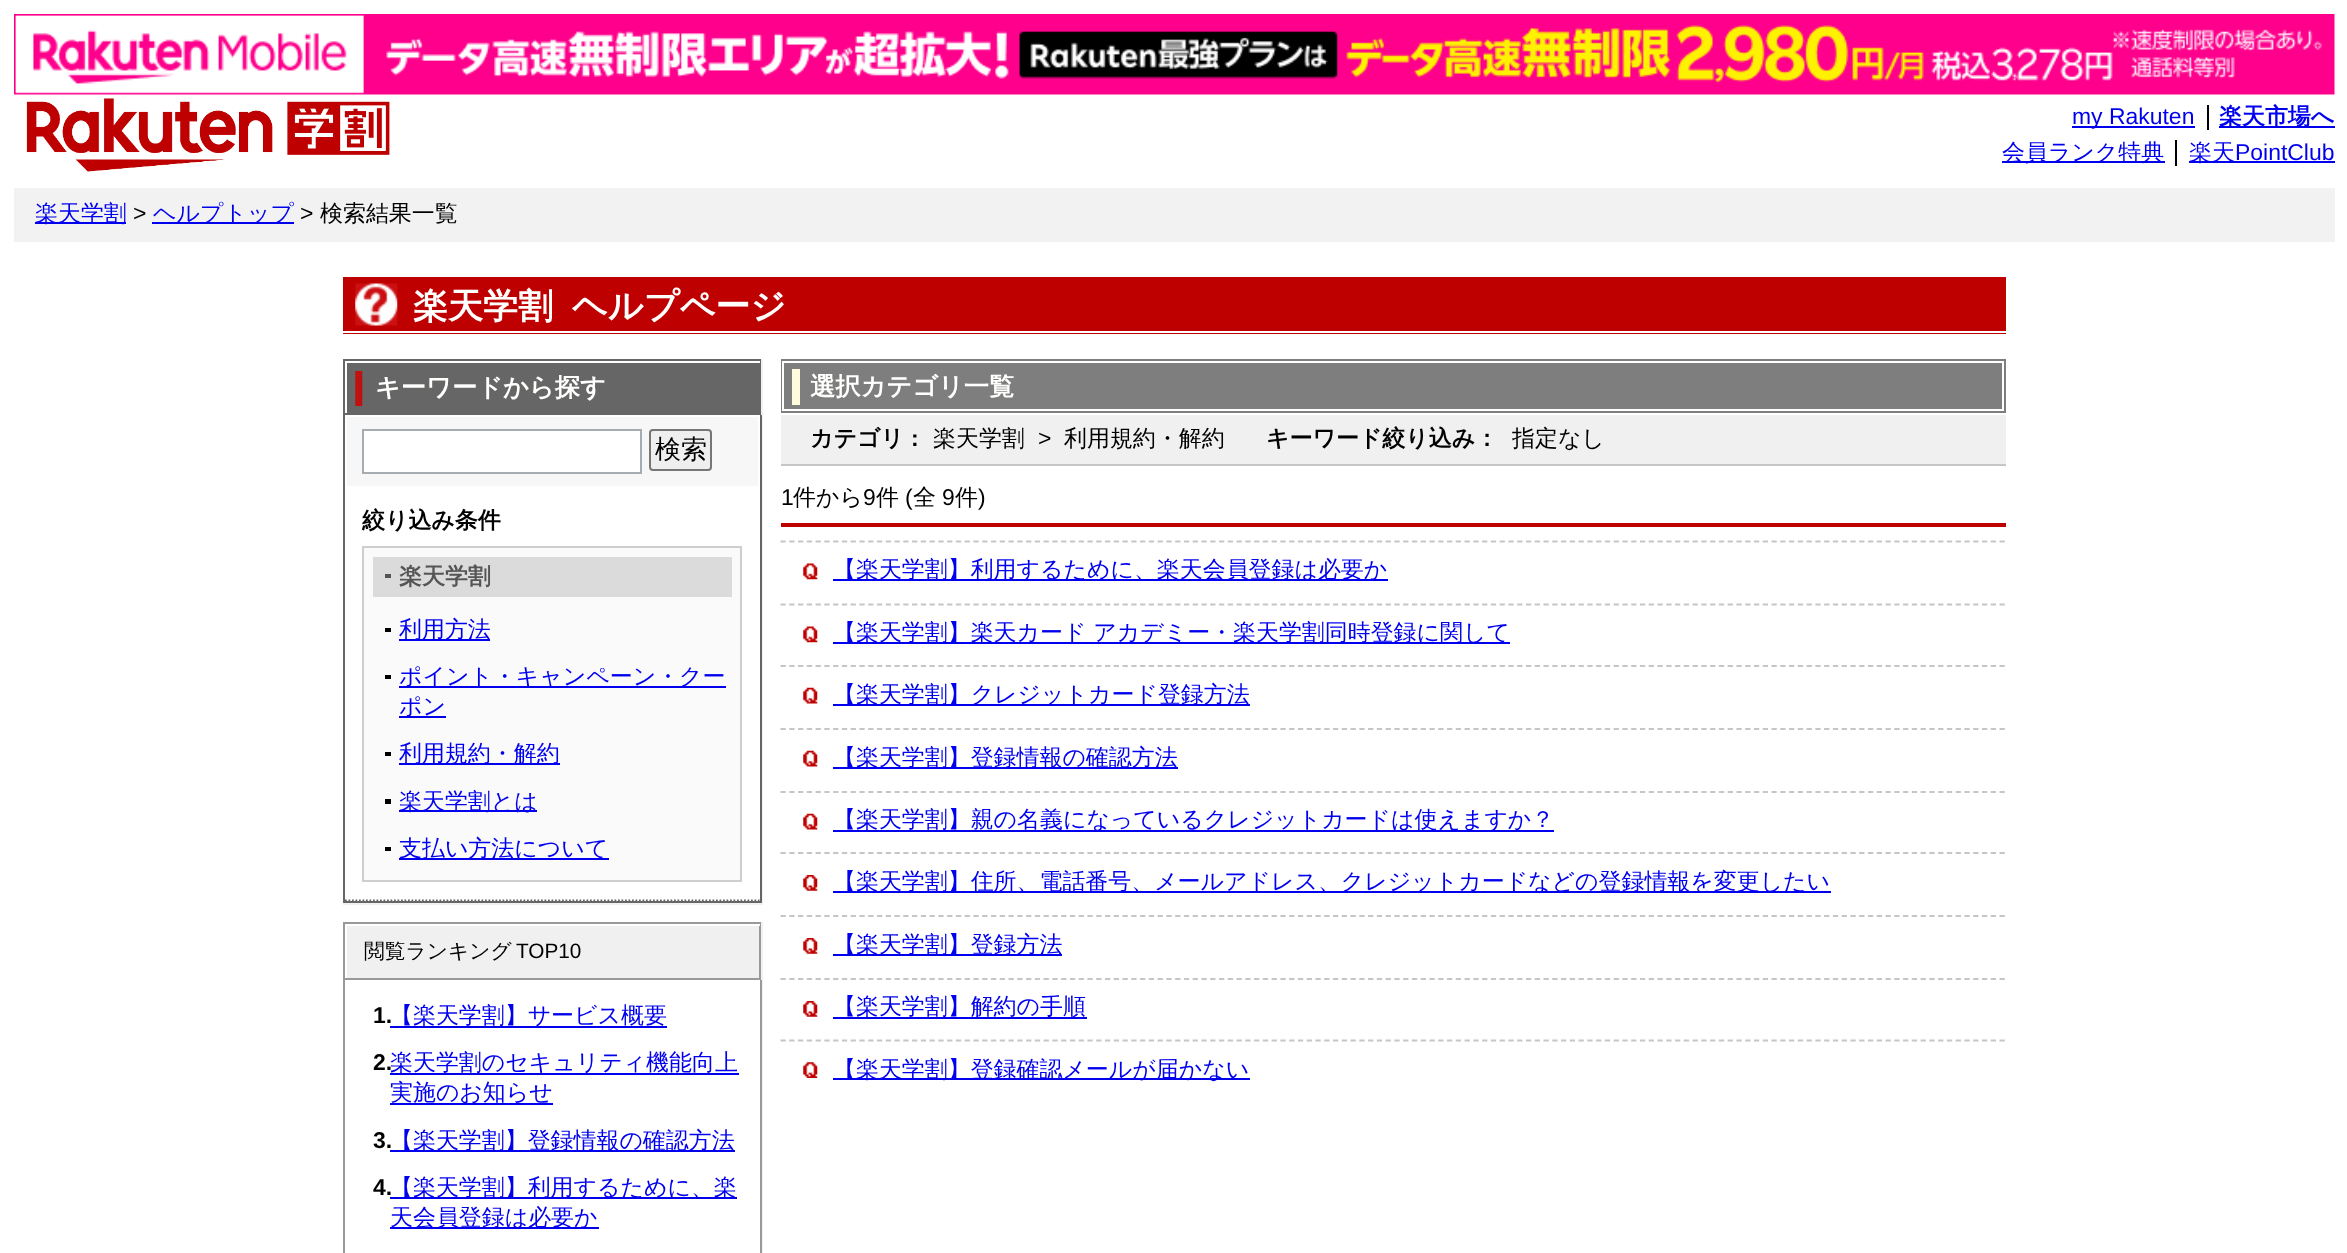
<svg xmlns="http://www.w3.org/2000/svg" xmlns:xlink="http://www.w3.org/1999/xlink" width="2347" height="1253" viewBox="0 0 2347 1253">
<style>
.cls-1{font:22.95px Liberation Sans;fill:#0000ee}
.cls-2{font:bold 22.95px WenQuanYi Zen Hei;fill:#0000ee}
.cls-3{font:500 22.95px WenQuanYi Zen Hei;fill:#0000ee}
.cls-4{font:22.95px Liberation Sans;fill:#000000}
.cls-5{font:500 22.95px WenQuanYi Zen Hei;fill:#000000}
.cls-6{font:bold 35px WenQuanYi Zen Hei;fill:#fffffd}
.cls-7{font:bold 25.25px WenQuanYi Zen Hei;fill:#fffffd}
.cls-8{font:bold 22.95px WenQuanYi Zen Hei;fill:#000000}
.cls-9{font:bold 22.95px Liberation Sans;fill:#000000}
.cls-10{font:500 26px WenQuanYi Zen Hei;fill:#000000}
.cls-11{font:bold 22.95px WenQuanYi Zen Hei;fill:#555555}
.cls-12{font:500 20.75px WenQuanYi Zen Hei;fill:#000000}
.cls-13{font:20.75px Liberation Sans;fill:#000000}
</style>
<rect width="100%" height="100%" fill="#ffffff"/>
<image xlink:href="image0.png" x="14" y="14" width="2321" height="81"/>
<image xlink:href="image1.png" x="26" y="98" width="364" height="74"/>
<rect fill="#000000" x="2207" y="105" width="2" height="25"/>
<rect fill="#0000ee" x="2072" y="126" width="123" height="2"/>
<rect fill="#0000ee" x="2219" y="126" width="116" height="2"/>
<rect fill="#000000" x="2175" y="140" width="2" height="26"/>
<rect fill="#0000ee" x="2002" y="161" width="163" height="2"/>
<rect fill="#0000ee" x="2189" y="161" width="146" height="2"/>
<rect fill="#f2f2f2" x="14" y="188" width="2321" height="54"/>
<rect fill="#0000ee" x="35" y="222" width="91" height="2"/>
<rect fill="#0000ee" x="152" y="222" width="142" height="2"/>
<rect fill="#bf0000" x="343" y="277" width="1663" height="57"/>
<image xlink:href="image2.png" x="355" y="283" width="43" height="43"/>
<rect fill="#ffffff" x="343" y="331" width="1663" height="2"/>
<rect fill="#7e7e7e" x="781" y="359" width="1225" height="54"/>
<rect fill="#fffcdd" x="792" y="369" width="8" height="36"/>
<rect fill="none" stroke="#ffffff" stroke-width="2" x="783" y="362" width="1220" height="48"/>
<rect fill="#f0f0f0" x="781" y="415" width="1225" height="49"/>
<rect fill="#c6c6c6" x="781" y="464" width="1225" height="2"/>
<rect fill="#bf0000" x="781" y="523" width="1225" height="4"/>
<image xlink:href="image3.png" x="803" y="563" width="15" height="17"/>
<path fill="none" stroke="#c6c6c6" stroke-width="1.8" stroke-dasharray="5.25 3.52" d="M780.5 541.5H2005.5"/>
<rect fill="#0000ee" x="833" y="579" width="555" height="2"/>
<image xlink:href="image3.png" x="803" y="626" width="15" height="17"/>
<path fill="none" stroke="#c6c6c6" stroke-width="1.8" stroke-dasharray="5.25 3.52" d="M780.5 604.5H2005.5"/>
<rect fill="#0000ee" x="833" y="642" width="677" height="2"/>
<image xlink:href="image4.png" x="803" y="687" width="15" height="17"/>
<path fill="none" stroke="#c6c6c6" stroke-width="1.8" stroke-dasharray="5.25 3.52" d="M780.5 666H2005.5"/>
<rect fill="#0000ee" x="833" y="704" width="417" height="2"/>
<image xlink:href="image4.png" x="803" y="750" width="15" height="17"/>
<path fill="none" stroke="#c6c6c6" stroke-width="1.8" stroke-dasharray="5.25 3.52" d="M780.5 729H2005.5"/>
<rect fill="#0000ee" x="833" y="767" width="345" height="2"/>
<image xlink:href="image4.png" x="803" y="813" width="15" height="17"/>
<path fill="none" stroke="#c6c6c6" stroke-width="1.8" stroke-dasharray="5.25 3.52" d="M780.5 792H2005.5"/>
<rect fill="#0000ee" x="833" y="830" width="721" height="2"/>
<image xlink:href="image5.png" x="803" y="875" width="15" height="16"/>
<path fill="none" stroke="#c6c6c6" stroke-width="1.8" stroke-dasharray="5.25 3.52" d="M780.5 853H2005.5"/>
<rect fill="#0000ee" x="833" y="891" width="998" height="2"/>
<image xlink:href="image5.png" x="803" y="938" width="15" height="16"/>
<path fill="none" stroke="#c6c6c6" stroke-width="1.8" stroke-dasharray="5.25 3.52" d="M780.5 916H2005.5"/>
<rect fill="#0000ee" x="833" y="954" width="229" height="2"/>
<image xlink:href="image5.png" x="803" y="1001" width="15" height="16"/>
<path fill="none" stroke="#c6c6c6" stroke-width="1.8" stroke-dasharray="5.25 3.52" d="M780.5 979H2005.5"/>
<rect fill="#0000ee" x="833" y="1017" width="254" height="2"/>
<image xlink:href="image6.png" x="803" y="1062" width="15" height="16"/>
<path fill="none" stroke="#c6c6c6" stroke-width="1.8" stroke-dasharray="5.25 3.52" d="M780.5 1040.5H2005.5"/>
<rect fill="#0000ee" x="833" y="1078" width="417" height="2"/>
<rect fill="#f1f1f1" x="761" y="359" width="2" height="546"/>
<rect fill="#f1f1f1" x="343" y="903" width="420" height="2"/>
<rect fill="#666666" x="343" y="359" width="418" height="56"/>
<image xlink:href="image7.png" x="355" y="371" width="8" height="35"/>
<rect fill="#ffffff" x="345" y="361" width="415" height="2"/>
<rect fill="#ffffff" x="345" y="361" width="2" height="52"/>
<rect fill="#666666" x="760" y="415" width="2" height="488"/>
<rect fill="#666666" x="343" y="901" width="418" height="2"/>
<rect fill="#666666" x="343" y="415" width="2" height="488"/>
<rect fill="#f7f7f7" x="347" y="417" width="411" height="69"/>
<rect fill="#ffffff" stroke="#a5acb2" stroke-width="2" x="363" y="430" width="278" height="43"/>
<rect fill="#efefef" stroke="#767676" stroke-width="2" x="650" y="430" width="61" height="40" rx="3"/>
<path fill="none" stroke="#666666" stroke-width="1.8" stroke-dasharray="1.75 1.75" d="M345 900.5H759.5"/>
<rect fill="#fafafa" stroke="#cecece" stroke-width="2" x="363" y="547" width="378" height="334"/>
<rect fill="#dbdbdb" x="373" y="557" width="359" height="40"/>
<rect fill="#555555" x="385" y="574" width="6" height="4"/>
<rect fill="#000000" x="385" y="628" width="6" height="4"/>
<rect fill="#0000ee" x="399" y="639" width="91" height="2"/>
<rect fill="#000000" x="385" y="675" width="6" height="4"/>
<rect fill="#0000ee" x="399" y="686" width="327" height="2"/>
<rect fill="#0000ee" x="399" y="716" width="47" height="2"/>
<rect fill="#000000" x="385" y="752" width="6" height="4"/>
<rect fill="#0000ee" x="399" y="763" width="161" height="2"/>
<rect fill="#000000" x="385" y="799" width="6" height="5"/>
<rect fill="#0000ee" x="399" y="810" width="138" height="2"/>
<rect fill="#000000" x="385" y="847" width="6" height="4"/>
<rect fill="#0000ee" x="399" y="858" width="210" height="2"/>
<rect fill="#f1f1f1" x="761" y="922" width="2" height="331"/>
<rect fill="#f0f0f0" x="347" y="926" width="412" height="52"/>
<rect fill="none" stroke="#999999" stroke-width="2" x="344" y="923" width="416" height="56"/>
<rect fill="#ffffff" x="759" y="924" width="1" height="2"/>
<rect fill="#999999" x="760" y="980" width="2" height="273"/>
<rect fill="#999999" x="343" y="980" width="2" height="273"/>
<rect fill="#0000ee" x="390" y="1026" width="277" height="2"/>
<rect fill="#0000ee" x="390" y="1073" width="349" height="2"/>
<rect fill="#0000ee" x="390" y="1103" width="163" height="2"/>
<rect fill="#0000ee" x="390" y="1150" width="345" height="2"/>
<rect fill="#0000ee" x="390" y="1197" width="347" height="2"/>
<rect fill="#0000ee" x="390" y="1227" width="209" height="2"/>
<text class="cls-1" x="2072" y="124">my Rakuten</text>
<text class="cls-2" x="2219" y="124">楽天市場へ</text>
<text class="cls-3" x="2002" y="160">会員ランク特典</text>
<text class="cls-3" x="2189" y="160">楽天</text>
<text class="cls-1" x="2235" y="160">PointClub</text>
<text class="cls-3" x="35" y="221">楽天学割</text>
<text class="cls-4" x="133" y="221">&gt;</text>
<text class="cls-3" x="153" y="221">ヘルプトップ</text>
<text class="cls-4" x="300" y="221">&gt;</text>
<text class="cls-5" x="320" y="221">検索結果一覧</text>
<text class="cls-6" x="413" y="318">楽天学割</text>
<text class="cls-6" x="572" y="318">ヘルプページ</text>
<text class="cls-7" x="810" y="395">選択カテゴリ一覧</text>
<text class="cls-8" x="810" y="446">カテゴリ</text>
<text class="cls-9" x="911" y="446">:</text>
<text class="cls-5" x="933" y="446">楽天学割</text>
<text class="cls-4" x="1038" y="446">&gt;</text>
<text class="cls-5" x="1064" y="446">利用規約・解約</text>
<text class="cls-8" x="1266" y="446">キーワード絞り込み：</text>
<text class="cls-5" x="1512" y="446">指定なし</text>
<text class="cls-4" x="781" y="505">1</text>
<text class="cls-5" x="793" y="505">件から</text>
<text class="cls-4" x="863" y="505">9</text>
<text class="cls-5" x="876" y="505">件</text>
<text class="cls-4" x="905" y="505">(</text>
<text class="cls-5" x="913" y="505">全</text>
<text class="cls-4" x="942" y="505">9</text>
<text class="cls-5" x="955" y="505">件</text>
<text class="cls-4" x="978" y="505">)</text>
<text class="cls-3" x="833" y="577">【楽天学割】利用するために、楽天会員登録は必要か</text>
<text class="cls-3" x="833" y="640">【楽天学割】楽天カード アカデミー・楽天学割同時登録に関して</text>
<text class="cls-3" x="833" y="702">【楽天学割】クレジットカード登録方法</text>
<text class="cls-3" x="833" y="765">【楽天学割】登録情報の確認方法</text>
<text class="cls-3" x="833" y="827">【楽天学割】親の名義になっているクレジットカードは使えますか？</text>
<text class="cls-3" x="833" y="889">【楽天学割】住所、電話番号、メールアドレス、クレジットカードなどの登録情報を変更したい</text>
<text class="cls-3" x="833" y="952">【楽天学割】登録方法</text>
<text class="cls-3" x="833" y="1014">【楽天学割】解約の手順</text>
<text class="cls-3" x="833" y="1077">【楽天学割】登録確認メールが届かない</text>
<text class="cls-7" x="375" y="396">キーワードから探す</text>
<text class="cls-10" x="655" y="458">検索</text>
<text class="cls-8" x="362" y="528">絞り込み条件</text>
<text class="cls-11" x="399" y="584">楽天学割</text>
<text class="cls-3" x="399" y="637">利用方法</text>
<text class="cls-3"><tspan x="399" y="684">ポイント・キャンペーン・クー</tspan><tspan x="399" y="714">ポン</tspan></text>
<text class="cls-3" x="399" y="761">利用規約・解約</text>
<text class="cls-3" x="399" y="809">楽天学割とは</text>
<text class="cls-3" x="399" y="856">支払い方法について</text>
<text class="cls-12" x="364" y="958">閲覧ランキング</text>
<text class="cls-13" x="516" y="958">TOP10</text>
<text class="cls-9" x="373" y="1023">1.</text>
<text class="cls-3" x="390" y="1023">【楽天学割】サービス概要</text>
<text class="cls-9" x="373" y="1070">2.</text>
<text class="cls-3"><tspan x="390" y="1070">楽天学割のセキュリティ機能向上</tspan><tspan x="390" y="1100">実施のお知らせ</tspan></text>
<text class="cls-9" x="373" y="1148">3.</text>
<text class="cls-3" x="390" y="1148">【楽天学割】登録情報の確認方法</text>
<text class="cls-9" x="373" y="1195">4.</text>
<text class="cls-3"><tspan x="390" y="1195">【楽天学割】利用するために、楽</tspan><tspan x="390" y="1225">天会員登録は必要か</tspan></text>
</svg>
